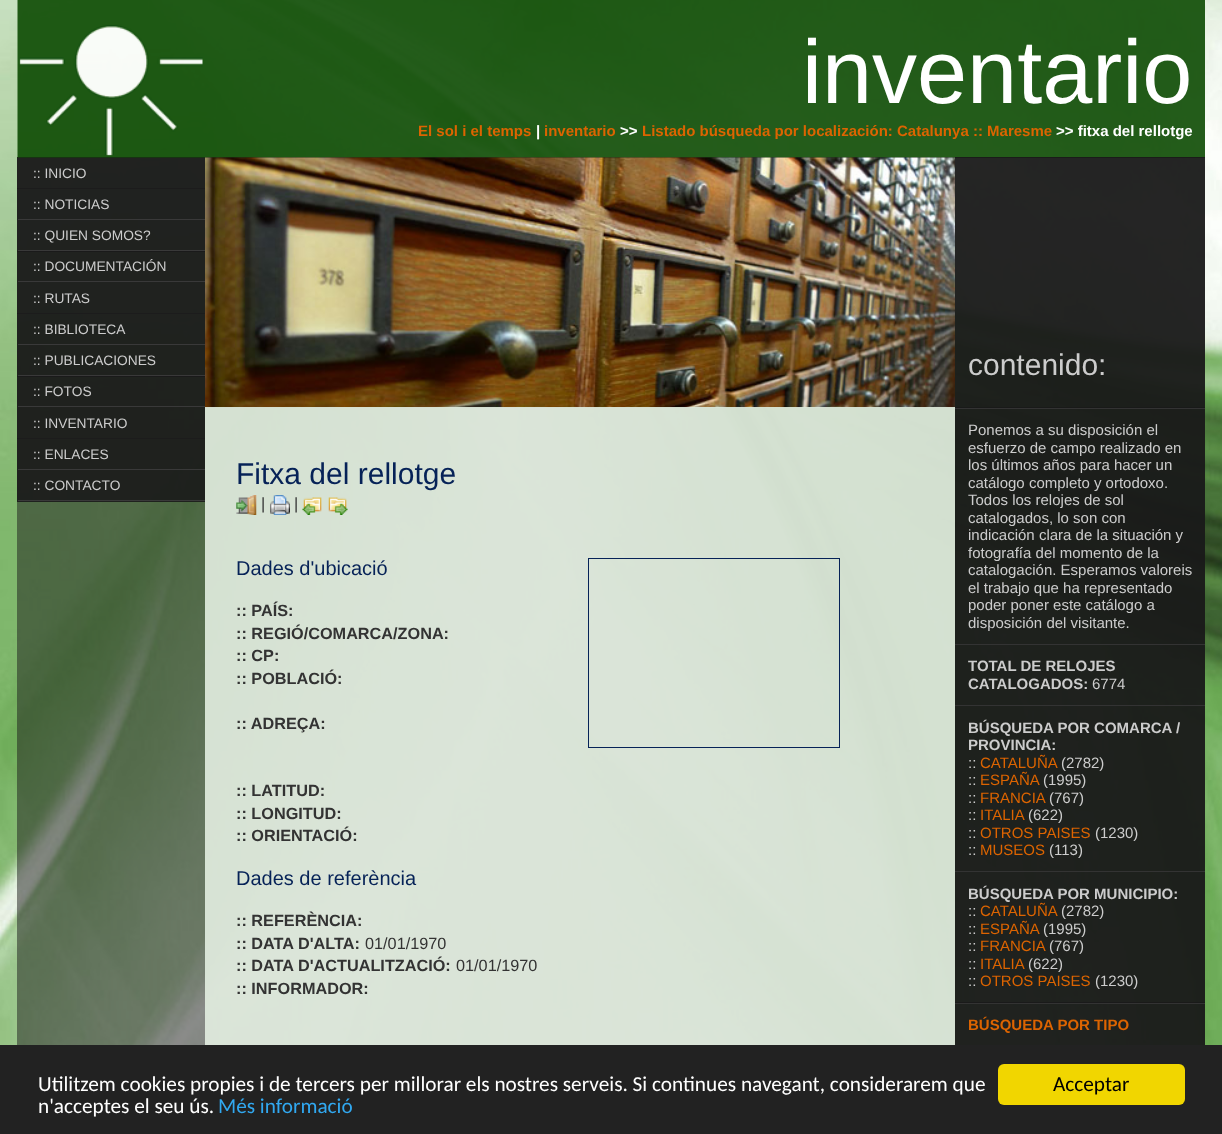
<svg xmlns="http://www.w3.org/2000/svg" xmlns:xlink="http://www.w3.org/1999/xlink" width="1222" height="1134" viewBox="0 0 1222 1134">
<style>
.cls-1{font:90px Liberation Sans;fill:#ffffff}
.cls-2{font:bold 15px Liberation Sans;fill:#dc6401}
.cls-3{font:bold 15px Liberation Sans;fill:#ffffff}
.cls-4{font:13.75px Liberation Sans;fill:#cccccc}
.cls-5{font:30px Liberation Sans;fill:#062257}
.cls-6{font:16.25px Liberation Sans;fill:#333333}
.cls-7{font:20px Liberation Sans;fill:#062257}
.cls-8{font:bold 16.25px Liberation Sans;fill:#333333}
.cls-9{font:30px Liberation Sans;fill:#cccccc}
.cls-10{font:15px Liberation Sans;fill:#cccccc}
.cls-11{font:bold 15px Liberation Sans;fill:#cccccc}
.cls-12{font:15px Liberation Sans;fill:#dc6401}
.cls-13{font:21.25px Carlito;fill:#ffffff}
.cls-14{font:21.25px Carlito;fill:#31a8f0}
.cls-15{font:21.25px Carlito;fill:#000000}
</style>
<rect width="100%" height="100%" fill="#ffffff"/>
<image xlink:href="image0.png" x="0" y="0" width="1222" height="1045"/>
<rect fill="#0c4a02" fill-opacity="0.9" x="205" y="0" width="1000" height="158"/>
<rect fill="#1a1a1a" fill-opacity="0.5" x="17" y="157" width="1188" height="888"/>
<rect fill="#1a1a1a" fill-opacity="0.9" x="17" y="157" width="188" height="32"/>
<image xlink:href="image1.png" x="17" y="0" width="188" height="158"/>
<rect fill="#393939" x="18" y="188" width="187" height="1"/>
<rect fill="#1a1a1a" fill-opacity="0.9" x="17" y="188" width="188" height="32"/>
<rect fill="#393939" x="18" y="219" width="187" height="1"/>
<rect fill="#1a1a1a" fill-opacity="0.9" x="17" y="220" width="188" height="32"/>
<rect fill="#393939" x="18" y="250" width="187" height="1"/>
<rect fill="#1a1a1a" fill-opacity="0.9" x="17" y="251" width="188" height="32"/>
<rect fill="#393939" x="18" y="281" width="187" height="1"/>
<rect fill="#1a1a1a" fill-opacity="0.9" x="17" y="283" width="188" height="31"/>
<rect fill="#393939" x="18" y="313" width="187" height="1"/>
<rect fill="#1a1a1a" fill-opacity="0.9" x="17" y="313" width="188" height="32"/>
<rect fill="#393939" x="18" y="344" width="187" height="1"/>
<rect fill="#1a1a1a" fill-opacity="0.9" x="17" y="345" width="188" height="32"/>
<rect fill="#393939" x="18" y="375" width="187" height="1"/>
<rect fill="#1a1a1a" fill-opacity="0.9" x="17" y="376" width="188" height="32"/>
<rect fill="#393939" x="18" y="406" width="187" height="1"/>
<rect fill="#1a1a1a" fill-opacity="0.9" x="17" y="408" width="188" height="31"/>
<rect fill="#393939" x="18" y="438" width="187" height="1"/>
<rect fill="#1a1a1a" fill-opacity="0.9" x="17" y="438" width="188" height="32"/>
<rect fill="#393939" x="18" y="469" width="187" height="1"/>
<rect fill="#1a1a1a" fill-opacity="0.9" x="17" y="470" width="188" height="32"/>
<rect fill="#393939" x="18" y="500" width="187" height="1"/>
<image xlink:href="image2.png" x="205" y="157" width="750" height="251"/>
<rect fill="#e3eee1" fill-opacity="0.9" x="205" y="407" width="750" height="638"/>
<image xlink:href="image3.png" x="236" y="495" width="21" height="20"/>
<image xlink:href="image4.png" x="270" y="495" width="20" height="20"/>
<image xlink:href="image5.png" x="302" y="497" width="20" height="18"/>
<image xlink:href="image6.png" x="328" y="497" width="20" height="18"/>
<rect fill="none" stroke="#062257" x="588.5" y="558.5" width="251" height="189"/>
<rect fill="#1a1a1a" fill-opacity="0.9" x="955" y="157" width="250" height="251"/>
<rect fill="#1a1a1a" fill-opacity="0.9" x="955" y="407" width="250" height="237"/>
<rect fill="#333333" x="955" y="408" width="250" height="1"/>
<rect fill="#1a1a1a" fill-opacity="0.9" x="955" y="645" width="250" height="60"/>
<rect fill="#333333" x="955" y="644" width="250" height="1"/>
<rect fill="#1a1a1a" fill-opacity="0.9" x="955" y="706" width="250" height="165"/>
<rect fill="#333333" x="955" y="705" width="250" height="1"/>
<rect fill="#1a1a1a" fill-opacity="0.9" x="955" y="872" width="250" height="131"/>
<rect fill="#333333" x="955" y="871" width="250" height="1"/>
<rect fill="#1a1a1a" fill-opacity="0.9" x="955" y="1002" width="250" height="43"/>
<rect fill="#333333" x="955" y="1003" width="250" height="1"/>
<rect fill="#222222" x="0" y="1045" width="1222" height="89"/>
<rect fill="#f1d600" x="998" y="1064" width="187" height="41" rx="6"/>
<text class="cls-1" x="802" y="103">inventario</text>
<text class="cls-2" x="418" y="136">El sol i el temps</text>
<text class="cls-3" x="536" y="136">|</text>
<text class="cls-2" x="544" y="136">inventario</text>
<text class="cls-3" x="620" y="136">&gt;&gt;</text>
<text class="cls-2" x="642" y="136">Listado búsqueda por localización: Catalunya :: Maresme</text>
<text class="cls-3" x="1056" y="136">&gt;&gt; fitxa del rellotge</text>
<text class="cls-4" x="33" y="178">:: INICIO</text>
<text class="cls-4" x="33" y="209">:: NOTICIAS</text>
<text class="cls-4" x="33" y="240">:: QUIEN SOMOS?</text>
<text class="cls-4" x="33" y="271">:: DOCUMENTACIÓN</text>
<text class="cls-4" x="33" y="303">:: RUTAS</text>
<text class="cls-4" x="33" y="334">:: BIBLIOTECA</text>
<text class="cls-4" x="33" y="365">:: PUBLICACIONES</text>
<text class="cls-4" x="33" y="396">:: FOTOS</text>
<text class="cls-4" x="33" y="428">:: INVENTARIO</text>
<text class="cls-4" x="33" y="459">:: ENLACES</text>
<text class="cls-4" x="33" y="490">:: CONTACTO</text>
<text class="cls-5" x="236" y="484">Fitxa del rellotge</text>
<text class="cls-6" x="261" y="509">|</text>
<text class="cls-6" x="294" y="509">|</text>
<text class="cls-7" x="236" y="575">Dades d'ubicació</text>
<text class="cls-8"><tspan x="236" y="616">:: PAÍS:</tspan><tspan x="236" y="639">:: REGIÓ/COMARCA/ZONA:</tspan><tspan x="236" y="661">:: CP:</tspan><tspan x="236" y="684">:: POBLACIÓ:</tspan></text>
<text class="cls-8" x="236" y="729">:: ADREÇA:</text>
<text class="cls-8"><tspan x="236" y="796">:: LATITUD:</tspan><tspan x="236" y="819">:: LONGITUD:</tspan><tspan x="236" y="841">:: ORIENTACIÓ:</tspan></text>
<text class="cls-7" x="236" y="885">Dades de referència</text>
<text class="cls-8"><tspan x="236" y="926">:: REFERÈNCIA:</tspan><tspan x="236" y="949">:: DATA D'ALTA:</tspan></text>
<text class="cls-6" x="365" y="949">01/01/1970</text>
<text class="cls-8" x="236" y="971">:: DATA D'ACTUALITZACIÓ:</text>
<text class="cls-6" x="456" y="971">01/01/1970</text>
<text class="cls-8" x="236" y="994">:: INFORMADOR:</text>
<text class="cls-9" x="968" y="375">contenido:</text>
<text class="cls-10"><tspan x="968" y="435">Ponemos a su disposición el</tspan><tspan x="968" y="453">esfuerzo de campo realizado en</tspan><tspan x="968" y="470">los últimos años para hacer un</tspan><tspan x="968" y="488">catálogo completo y ortodoxo.</tspan><tspan x="968" y="505">Todos los relojes de sol</tspan><tspan x="968" y="523">catalogados, lo son con</tspan><tspan x="968" y="540">indicación clara de la situación y</tspan><tspan x="968" y="558">fotografía del momento de la</tspan><tspan x="968" y="575">catalogación. Esperamos valoreis</tspan><tspan x="968" y="593">el trabajo que ha representado</tspan><tspan x="968" y="610">poder poner este catálogo a</tspan><tspan x="968" y="628">disposición del visitante.</tspan></text>
<text class="cls-11"><tspan x="968" y="671">TOTAL DE RELOJES</tspan><tspan x="968" y="689">CATALOGADOS:</tspan></text>
<text class="cls-10" x="1092" y="689">6774</text>
<text class="cls-11"><tspan x="968" y="733">BÚSQUEDA POR COMARCA /</tspan><tspan x="968" y="750">PROVINCIA:</tspan></text>
<text class="cls-10" x="968" y="768">::</text>
<text class="cls-12" x="980" y="768">CATALUÑA</text>
<text class="cls-10" x="1061" y="768">(2782)</text>
<text class="cls-10" x="968" y="785">::</text>
<text class="cls-12" x="980" y="785">ESPAÑA</text>
<text class="cls-10" x="1043" y="785">(1995)</text>
<text class="cls-10" x="968" y="803">::</text>
<text class="cls-12" x="980" y="803">FRANCIA</text>
<text class="cls-10" x="1049" y="803">(767)</text>
<text class="cls-10" x="968" y="820">::</text>
<text class="cls-12" x="980" y="820">ITALIA</text>
<text class="cls-10" x="1028" y="820">(622)</text>
<text class="cls-10" x="968" y="838">::</text>
<text class="cls-12" x="980" y="838">OTROS PAISES</text>
<text class="cls-10" x="1095" y="838">(1230)</text>
<text class="cls-10" x="968" y="855">::</text>
<text class="cls-12" x="980" y="855">MUSEOS</text>
<text class="cls-10" x="1049" y="855">(113)</text>
<text class="cls-11" x="968" y="899">BÚSQUEDA POR MUNICIPIO:</text>
<text class="cls-10" x="968" y="916">::</text>
<text class="cls-12" x="980" y="916">CATALUÑA</text>
<text class="cls-10" x="1061" y="916">(2782)</text>
<text class="cls-10" x="968" y="934">::</text>
<text class="cls-12" x="980" y="934">ESPAÑA</text>
<text class="cls-10" x="1043" y="934">(1995)</text>
<text class="cls-10" x="968" y="951">::</text>
<text class="cls-12" x="980" y="951">FRANCIA</text>
<text class="cls-10" x="1049" y="951">(767)</text>
<text class="cls-10" x="968" y="969">::</text>
<text class="cls-12" x="980" y="969">ITALIA</text>
<text class="cls-10" x="1028" y="969">(622)</text>
<text class="cls-10" x="968" y="986">::</text>
<text class="cls-12" x="980" y="986">OTROS PAISES</text>
<text class="cls-10" x="1095" y="986">(1230)</text>
<text class="cls-2" x="968" y="1030">BÚSQUEDA POR TIPO</text>
<text class="cls-13"><tspan x="38" y="1091">Utilitzem cookies propies i de tercers per millorar els nostres serveis. Si continues navegant, considerarem que</tspan><tspan x="38" y="1113">n'acceptes el seu ús.</tspan></text>
<text class="cls-14" x="218" y="1113">Més informació</text>
<text class="cls-15" x="1053" y="1091">Acceptar</text>
</svg>
